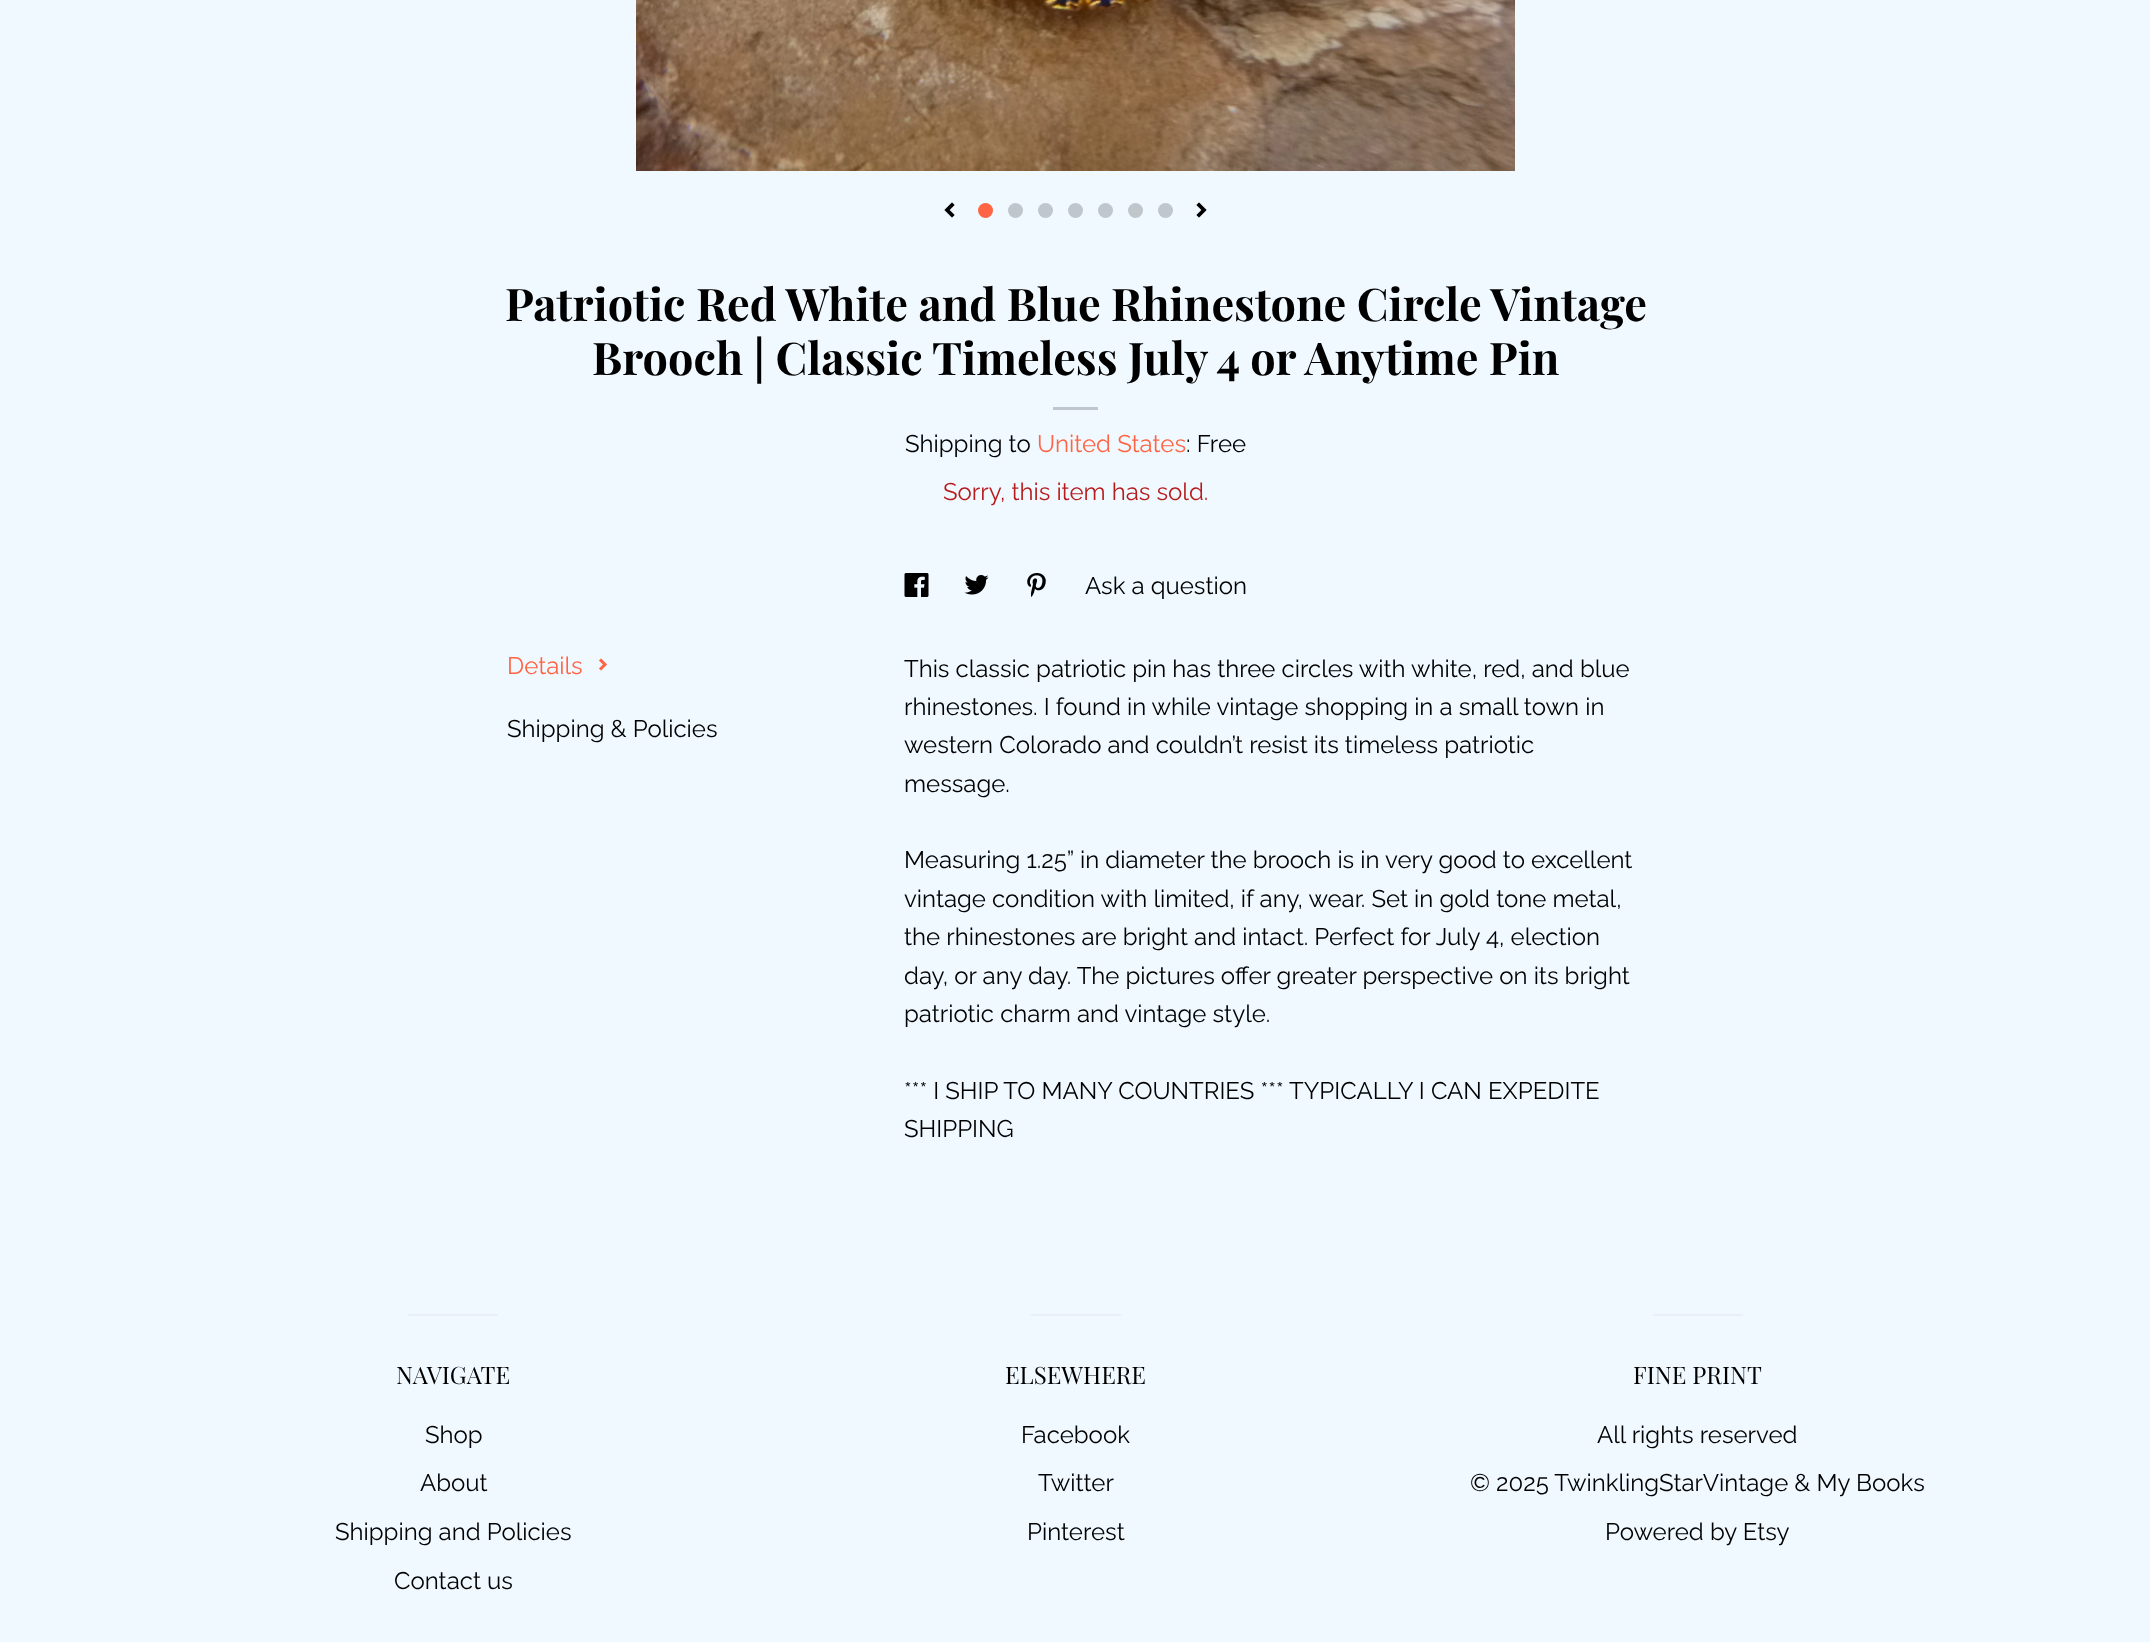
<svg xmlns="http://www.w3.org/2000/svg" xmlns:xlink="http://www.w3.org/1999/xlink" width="2150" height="1642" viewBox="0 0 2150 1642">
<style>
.cls-1{font:bold 45px Playfair Display;fill:#000000}
.cls-2{font:24px Raleway;fill:#000000}
.cls-3{font:24px Raleway;fill:#ff6544}
.cls-4{font:24px Raleway;fill:#b71c1c}
.cls-5{font:24px Playfair Display;fill:#000000}
</style>
<rect width="100%" height="100%" fill="#f0f9ff"/>
<image xlink:href="image0.png" x="636" y="0" width="879" height="171"/>
<image xlink:href="image1.png" x="944" y="202" width="11" height="16"/>
<circle fill="#ff6544" cx="985.5" cy="210.5" r="7.5"/>
<circle fill="#c0c7cc" cx="1015.5" cy="210.5" r="7.5"/>
<circle fill="#c0c7cc" cx="1045.5" cy="210.5" r="7.5"/>
<circle fill="#c0c7cc" cx="1075.5" cy="210.5" r="7.5"/>
<circle fill="#c0c7cc" cx="1105.5" cy="210.5" r="7.5"/>
<circle fill="#c0c7cc" cx="1135.5" cy="210.5" r="7.5"/>
<circle fill="#c0c7cc" cx="1165.5" cy="210.5" r="7.5"/>
<image xlink:href="image2.png" x="1196" y="202" width="11" height="16"/>
<rect fill="#c0c7cc" x="1053" y="407" width="45" height="3"/>
<image xlink:href="image3.png" x="904" y="573" width="25" height="24"/>
<image xlink:href="image4.png" x="964" y="575" width="25" height="20"/>
<image xlink:href="image5.png" x="1027" y="573" width="19" height="24"/>
<image xlink:href="image6.png" x="599" y="658" width="8" height="13"/>
<rect fill="#e9f0f5" x="408" y="1314" width="90" height="2"/>
<rect fill="#e9f0f5" x="1031" y="1314" width="90" height="2"/>
<rect fill="#e9f0f5" x="1653" y="1314" width="90" height="2"/>
<text class="cls-1" x="505" y="321">Patriotic Red White and Blue Rhinestone Circle Vintage</text>
<text class="cls-1" x="592" y="375">Brooch | Classic Timeless July 4 or Anytime Pin</text>
<text class="cls-2" x="905" y="452">Shipping to</text>
<text class="cls-3" x="1037" y="452">United States</text>
<text class="cls-2" x="1186" y="452">: Free</text>
<text class="cls-4" x="943" y="500">Sorry, this item has sold.</text>
<text class="cls-2" x="1085" y="594">Ask a question</text>
<text class="cls-3" x="507" y="674">Details</text>
<text class="cls-2" x="507" y="737">Shipping &amp; Policies</text>
<text class="cls-2"><tspan x="904" y="677">This classic patriotic pin has three circles with white, red, and blue</tspan><tspan x="904" y="715">rhinestones. I found in while vintage shopping in a small town in</tspan><tspan x="904" y="753">western Colorado and couldn’t resist its timeless patriotic</tspan><tspan x="904" y="792">message.</tspan></text>
<text class="cls-2"><tspan x="904" y="868">Measuring 1.25” in diameter the brooch is in very good to excellent</tspan><tspan x="904" y="907">vintage condition with limited, if any, wear. Set in gold tone metal,</tspan><tspan x="904" y="945">the rhinestones are bright and intact. Perfect for July 4, election</tspan><tspan x="904" y="984">day, or any day. The pictures offer greater perspective on its bright</tspan><tspan x="904" y="1022">patriotic charm and vintage style.</tspan></text>
<text class="cls-2"><tspan x="904" y="1099">*** I SHIP TO MANY COUNTRIES *** TYPICALLY I CAN EXPEDITE</tspan><tspan x="904" y="1137">SHIPPING</tspan></text>
<text class="cls-5" x="396" y="1384">NAVIGATE</text>
<text class="cls-2" x="425" y="1443">Shop</text>
<text class="cls-2" x="420" y="1491">About</text>
<text class="cls-2" x="335" y="1540">Shipping and Policies</text>
<text class="cls-2" x="394" y="1589">Contact us</text>
<text class="cls-5" x="1005" y="1384">ELSEWHERE</text>
<text class="cls-2" x="1021" y="1443">Facebook</text>
<text class="cls-2" x="1038" y="1491">Twitter</text>
<text class="cls-2" x="1027" y="1540">Pinterest</text>
<text class="cls-5" x="1633" y="1384">FINE PRINT</text>
<text class="cls-2" x="1597" y="1443">All rights reserved</text>
<text class="cls-2" x="1470" y="1491">© 2025 TwinklingStarVintage &amp; My Books</text>
<text class="cls-2" x="1605" y="1540">Powered by Etsy</text>
</svg>
